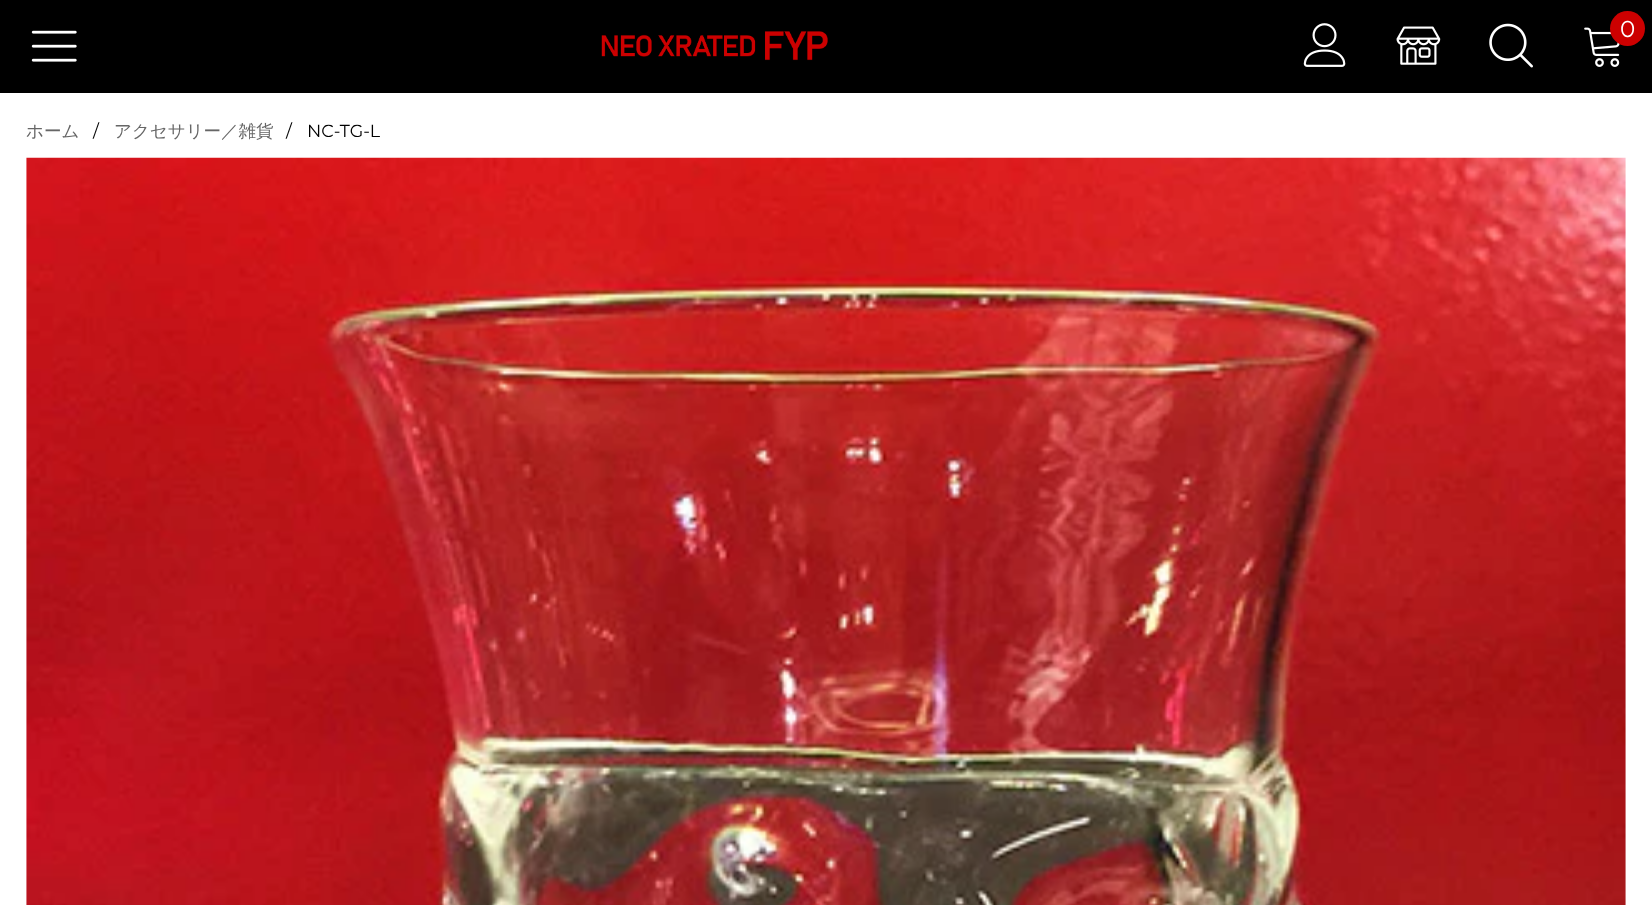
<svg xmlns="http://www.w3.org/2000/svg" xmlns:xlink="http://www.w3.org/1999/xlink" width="1652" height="905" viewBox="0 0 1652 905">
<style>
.cls-1{font:23px Montserrat;fill:#ffffff}
.cls-2{font:500 17.5px WenQuanYi Zen Hei;fill:#666666}
.cls-3{font:17.5px Montserrat;fill:#000000}
</style>
<rect width="100%" height="100%" fill="#ffffff"/>
<rect fill="#000000" x="0" y="0" width="1652" height="93"/>
<image xlink:href="image0.png" x="31" y="30" width="46" height="32"/>
<image xlink:href="image1.png" x="601" y="31" width="227" height="30"/>
<image xlink:href="image2.png" x="1303" y="23" width="43" height="44"/>
<image xlink:href="image3.png" x="1396" y="26" width="45" height="39"/>
<image xlink:href="image4.png" x="1489" y="23" width="44" height="45"/>
<image xlink:href="image5.png" x="1584" y="27" width="36" height="40"/>
<circle fill="#cc0000" cx="1627.5" cy="28.5" r="17.5"/>
<image xlink:href="image6.png" x="26" y="157" width="1600" height="748"/>
<text class="cls-1" x="1620" y="37">0</text>
<text class="cls-2" x="26" y="137">ホーム</text>
<text class="cls-3" x="93" y="137">/</text>
<text class="cls-2" x="114" y="137">アクセサリー／雑貨</text>
<text class="cls-3" x="286" y="137">/</text>
<text class="cls-3" x="307" y="137">NC-TG-L</text>
</svg>
